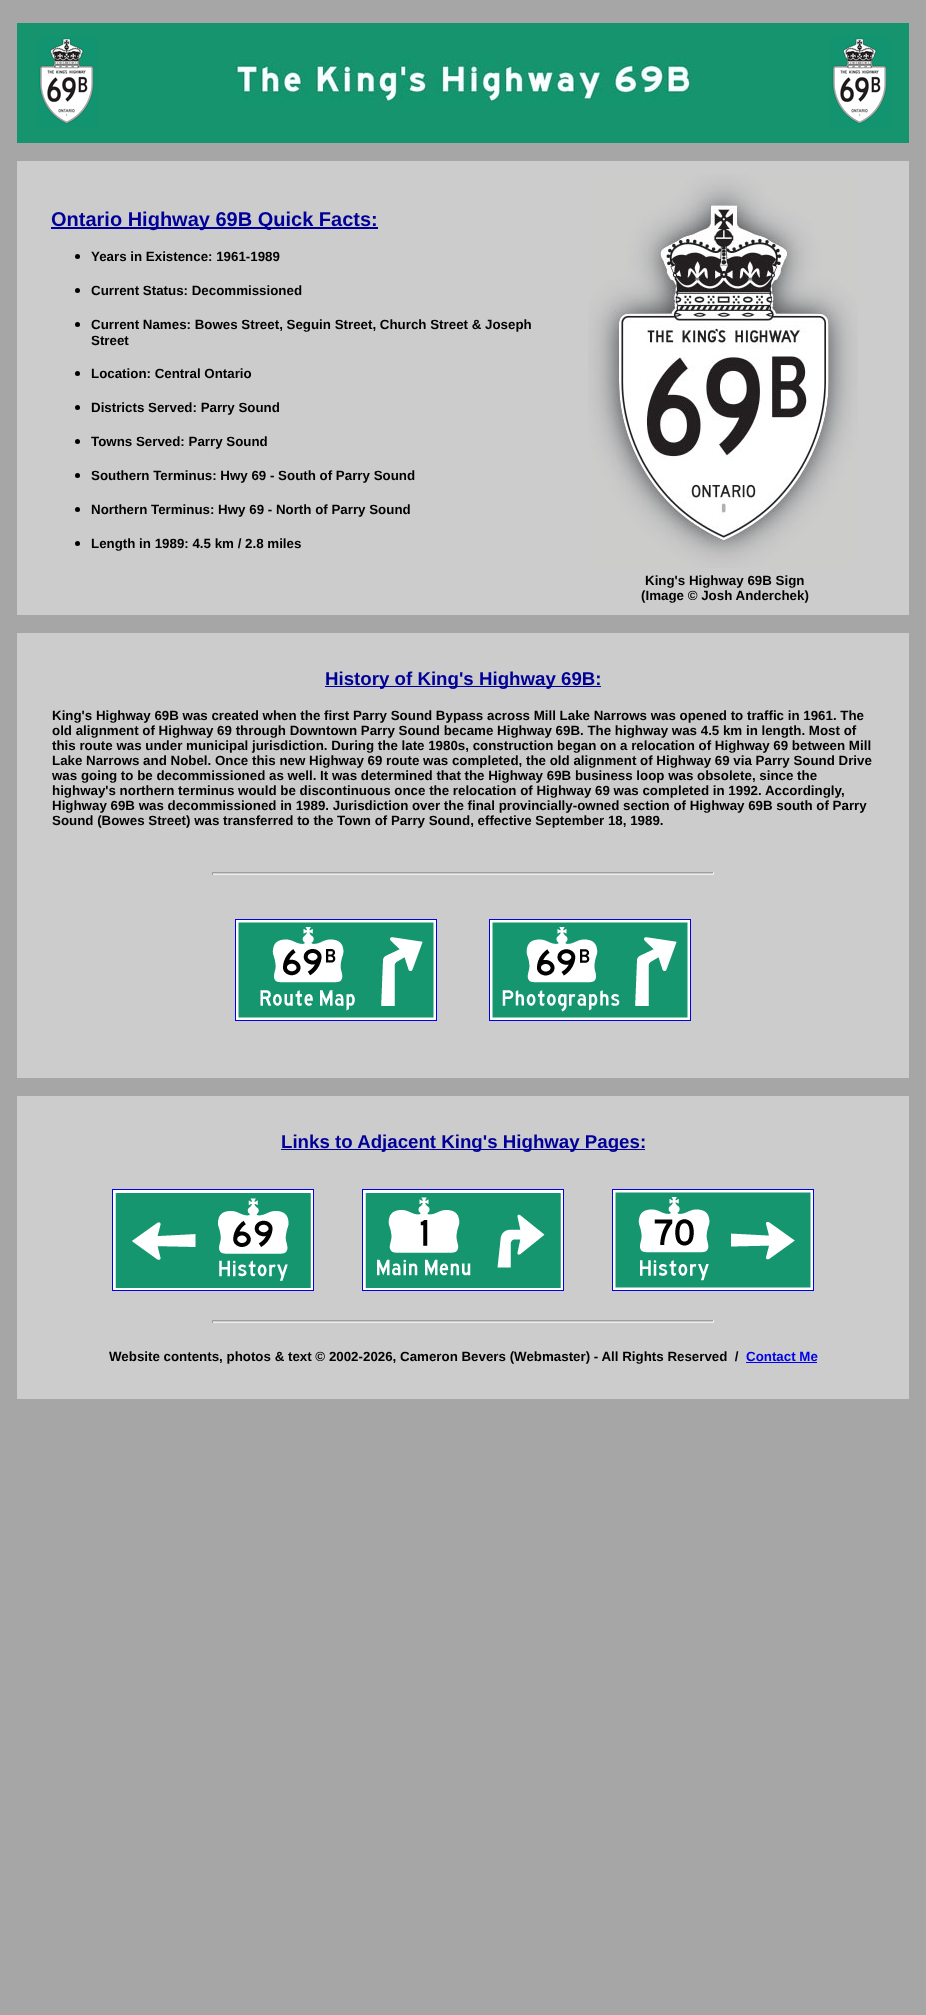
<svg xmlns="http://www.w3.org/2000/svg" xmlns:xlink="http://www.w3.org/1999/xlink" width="926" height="2015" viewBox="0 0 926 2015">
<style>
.cls-1{font:bold 20px Liberation Sans;fill:#000099}
.cls-2{font:bold 13.33px Liberation Sans;fill:#000000}
.cls-3{font:bold 18.7px Liberation Sans;fill:#000099}
.cls-4{font:bold 13.33px Liberation Sans;fill:#0000ee}
</style>
<rect width="100%" height="100%" fill="#a6a6a6"/>
<rect fill="#15946d" x="17" y="23" width="892" height="120"/>
<image xlink:href="image0.png" x="37" y="36" width="61" height="91"/>
<image xlink:href="image1.png" x="233" y="60" width="458" height="46"/>
<image xlink:href="image0.png" x="830" y="36" width="61" height="91"/>
<rect fill="#cccccc" x="17" y="161" width="892" height="454"/>
<rect fill="#000099" x="51" y="227" width="327" height="2"/>
<circle fill="#000000" cx="77.5" cy="256.5" r="2.5"/>
<circle fill="#000000" cx="77.5" cy="290.5" r="2.5"/>
<circle fill="#000000" cx="77.5" cy="324.5" r="2.5"/>
<circle fill="#000000" cx="77.5" cy="373.5" r="2.5"/>
<circle fill="#000000" cx="77.5" cy="407.5" r="2.5"/>
<circle fill="#000000" cx="77.5" cy="441.5" r="2.5"/>
<circle fill="#000000" cx="77.5" cy="475.5" r="2.5"/>
<circle fill="#000000" cx="77.5" cy="509.5" r="2.5"/>
<circle fill="#000000" cx="77.5" cy="543.5" r="2.5"/>
<image xlink:href="image2.png" x="588" y="173" width="270" height="395"/>
<rect fill="#cccccc" x="17" y="633" width="892" height="445"/>
<rect fill="#000099" x="325" y="686" width="276" height="1"/>
<rect fill="#9f9f9f" x="212" y="872" width="502" height="1"/>
<rect fill="#eeeeee" x="713" y="872" width="1" height="3"/>
<rect fill="#eeeeee" x="212" y="874" width="502" height="1"/>
<rect fill="#9f9f9f" x="212" y="872" width="1" height="3"/>
<rect fill="none" stroke="#0000ee" x="235.5" y="919.5" width="201" height="101"/>
<rect fill="none" stroke="#0000ee" x="489.5" y="919.5" width="201" height="101"/>
<image xlink:href="image3.png" x="236" y="920" width="200" height="100"/>
<image xlink:href="image4.png" x="490" y="920" width="200" height="100"/>
<rect fill="#cccccc" x="17" y="1096" width="892" height="303"/>
<rect fill="#000099" x="281" y="1149" width="364" height="1"/>
<rect fill="none" stroke="#0000ee" x="112.5" y="1189.5" width="201" height="101"/>
<rect fill="none" stroke="#0000ee" x="362.5" y="1189.5" width="201" height="101"/>
<rect fill="none" stroke="#0000ee" x="612.5" y="1189.5" width="201" height="101"/>
<image xlink:href="image5.png" x="113" y="1190" width="200" height="100"/>
<image xlink:href="image6.png" x="363" y="1190" width="200" height="100"/>
<image xlink:href="image7.png" x="613" y="1190" width="200" height="100"/>
<rect fill="#9f9f9f" x="212" y="1320" width="502" height="1"/>
<rect fill="#eeeeee" x="713" y="1320" width="1" height="3"/>
<rect fill="#eeeeee" x="212" y="1322" width="502" height="1"/>
<rect fill="#9f9f9f" x="212" y="1320" width="1" height="3"/>
<rect fill="#0000ee" x="746" y="1362" width="71" height="1"/>
<text class="cls-1" x="51" y="226">Ontario Highway 69B Quick Facts:</text>
<text class="cls-2" x="91" y="261">Years in Existence: 1961-1989</text>
<text class="cls-2" x="91" y="295">Current Status: Decommissioned</text>
<text class="cls-2"><tspan x="91" y="329">Current Names: Bowes Street, Seguin Street, Church Street &amp; Joseph</tspan><tspan x="91" y="345">Street</tspan></text>
<text class="cls-2" x="91" y="378">Location: Central Ontario</text>
<text class="cls-2" x="91" y="412">Districts Served: Parry Sound</text>
<text class="cls-2" x="91" y="446">Towns Served: Parry Sound</text>
<text class="cls-2" x="91" y="480">Southern Terminus: Hwy 69 - South of Parry Sound</text>
<text class="cls-2" x="91" y="514">Northern Terminus: Hwy 69 - North of Parry Sound</text>
<text class="cls-2" x="91" y="548">Length in 1989: 4.5 km / 2.8 miles</text>
<text class="cls-2" x="645" y="585">King's Highway 69B Sign</text>
<text class="cls-2" x="641" y="600">(Image © Josh Anderchek)</text>
<text class="cls-3" x="325" y="685">History of King's Highway 69B:</text>
<text class="cls-2"><tspan x="52" y="720">King's Highway 69B was created when the first Parry Sound Bypass across Mill Lake Narrows was opened to traffic in 1961. The</tspan><tspan x="52" y="735">old alignment of Highway 69 through Downtown Parry Sound became Highway 69B. The highway was 4.5 km in length. Most of</tspan><tspan x="52" y="750">this route was under municipal jurisdiction. During the late 1980s, construction began on a relocation of Highway 69 between Mill</tspan><tspan x="52" y="765">Lake Narrows and Nobel. Once this new Highway 69 route was completed, the old alignment of Highway 69 via Parry Sound Drive</tspan><tspan x="52" y="780">was going to be decommissioned as well. It was determined that the Highway 69B business loop was obsolete, since the</tspan><tspan x="52" y="795">highway's northern terminus would be discontinuous once the relocation of Highway 69 was completed in 1992. Accordingly,</tspan><tspan x="52" y="810">Highway 69B was decommissioned in 1989. Jurisdiction over the final provincially-owned section of Highway 69B south of Parry</tspan><tspan x="52" y="825">Sound (Bowes Street) was transferred to the Town of Parry Sound, effective September 18, 1989.</tspan></text>
<text class="cls-3" x="281" y="1148">Links to Adjacent King's Highway Pages:</text>
<text class="cls-2" xml:space="preserve" x="109" y="1361">Website contents, photos &amp; text © 2002-2026, Cameron Bevers (Webmaster) - All Rights Reserved  /</text>
<text class="cls-4" x="746" y="1361">Contact Me</text>
</svg>
